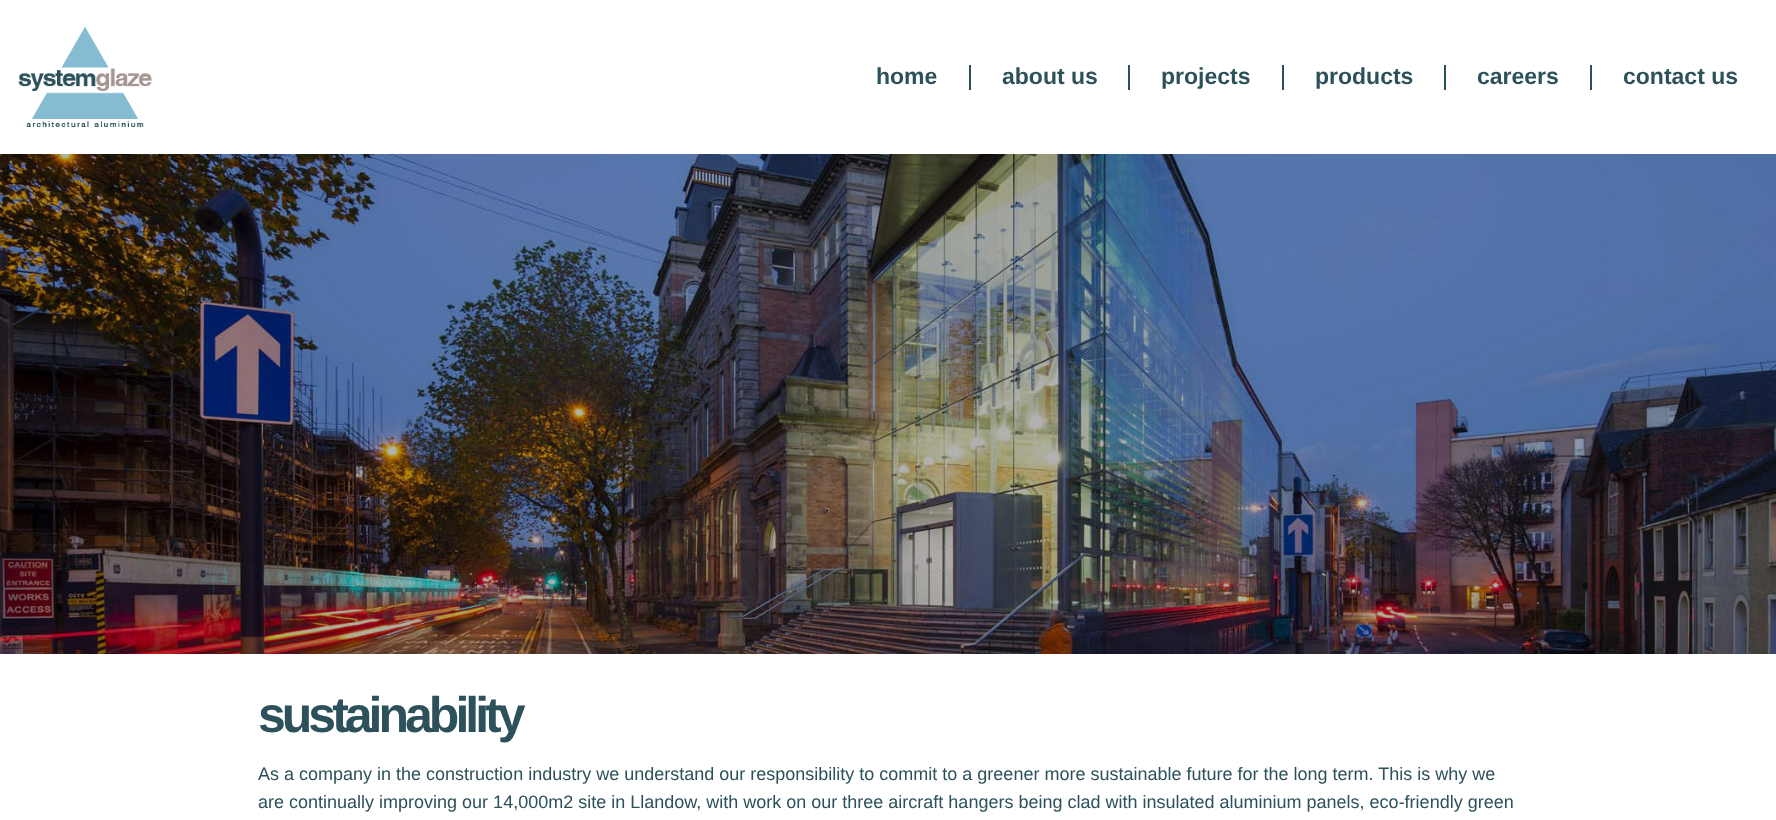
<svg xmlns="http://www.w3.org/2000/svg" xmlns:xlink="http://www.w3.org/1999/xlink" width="1776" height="820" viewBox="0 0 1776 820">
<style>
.cls-1{font:bold 23px Liberation Sans;fill:#2d515a}
.cls-2{font:bold 50px Liberation Sans;letter-spacing:-4px;fill:#2d515a}
.cls-3{font:18px Liberation Sans;fill:#2d515a}
</style>
<rect width="100%" height="100%" fill="#ffffff"/>
<image xlink:href="image0.png" x="18" y="27" width="134" height="100"/>
<rect fill="#2d515a" x="969" y="65" width="2" height="25"/>
<rect fill="#2d515a" x="1128" y="65" width="2" height="25"/>
<rect fill="#2d515a" x="1282" y="65" width="2" height="25"/>
<rect fill="#2d515a" x="1444" y="65" width="2" height="25"/>
<rect fill="#2d515a" x="1590" y="65" width="2" height="25"/>
<image xlink:href="image1.png" x="0" y="154" width="1776" height="500"/>
<text class="cls-1" x="876" y="84">home</text>
<text class="cls-1" x="1002" y="84">about us</text>
<text class="cls-1" x="1161" y="84">projects</text>
<text class="cls-1" x="1315" y="84">products</text>
<text class="cls-1" x="1477" y="84">careers</text>
<text class="cls-1" x="1623" y="84">contact us</text>
<text class="cls-2" x="258" y="732">sustainability</text>
<text class="cls-3"><tspan x="258" y="780">As a company in the construction industry we understand our responsibility to commit to a greener more sustainable future for the long term. This is why we</tspan><tspan x="258" y="808">are continually improving our 14,000m2 site in Llandow, with work on our three aircraft hangers being clad with insulated aluminium panels, eco-friendly green</tspan></text>
</svg>
